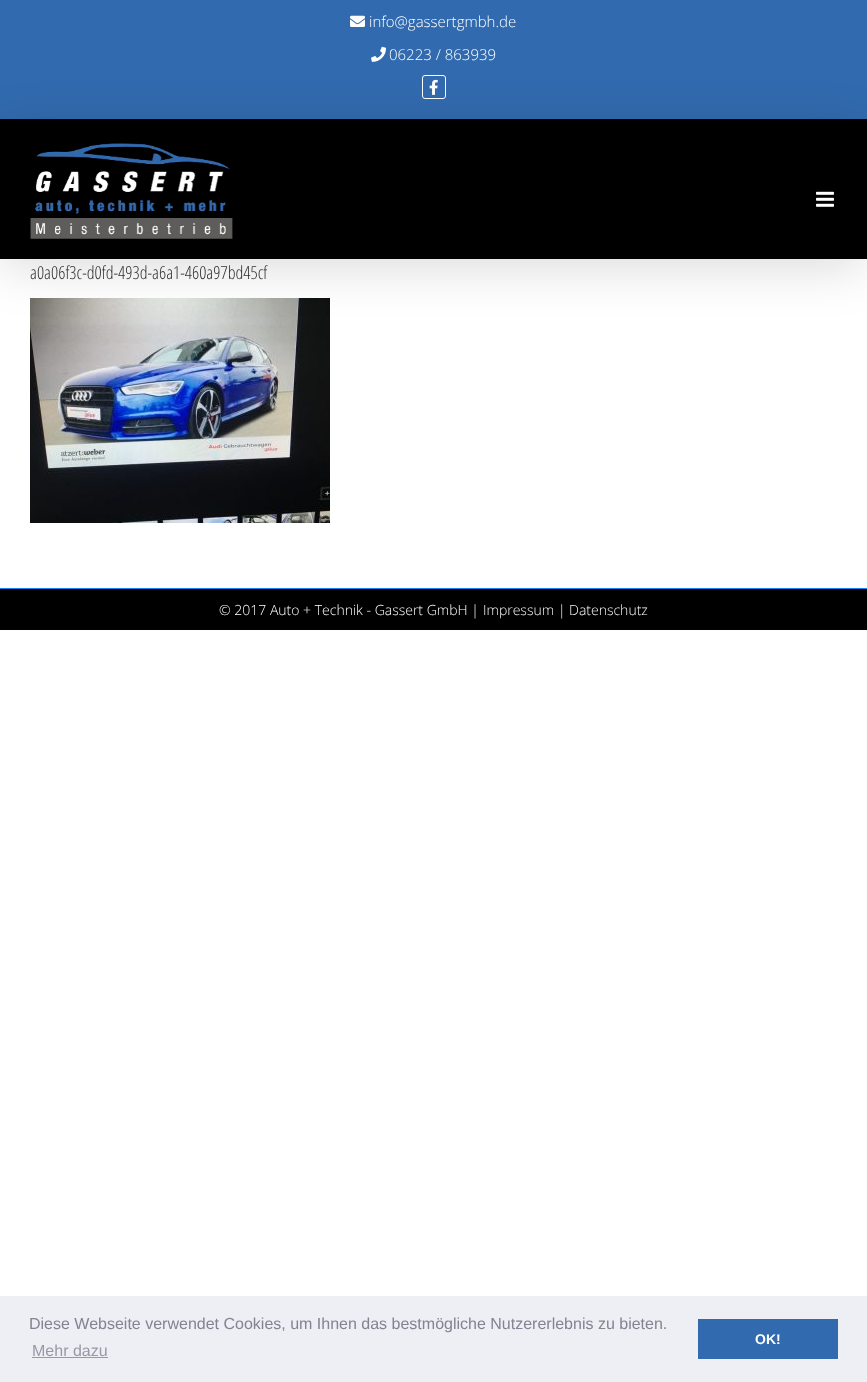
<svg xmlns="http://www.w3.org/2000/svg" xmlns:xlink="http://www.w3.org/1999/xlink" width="867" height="1382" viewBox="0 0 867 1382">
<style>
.cls-1{font:300 15px 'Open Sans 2';fill:#ffffff}
.cls-2{font:300 18px Open Sans;fill:#333333}
.cls-3{font:300 14px 'Open Sans 2';fill:#ffffff}
.cls-4{font:300 14px 'Open Sans 2';fill:#f9f9f9}
.cls-5{font:16px Liberation Sans;fill:#838391}
.cls-6{font:16px Liberation Sans;fill:#9899a5}
.cls-7{font:bold 14px Liberation Sans;fill:#ffffff}
</style>
<rect width="100%" height="100%" fill="#ffffff"/>
<rect fill="#316aae" x="0" y="0" width="867" height="119"/>
<image xlink:href="image0.png" x="350" y="15" width="15" height="12"/>
<image xlink:href="image1.png" x="371" y="46" width="15" height="16"/>
<rect fill="none" stroke="#ffffff" x="422.5" y="75.5" width="23" height="23" rx="2.5"/>
<image xlink:href="image2.png" x="429" y="79" width="9" height="16"/>
<image xlink:href="image5.png" x="30" y="298" width="300" height="225"/>
<rect fill="#000000" fill-opacity="0.14" filter="blur(25px)" x="2" y="131" width="863" height="136"/>
<rect fill="#000000" x="0" y="119" width="867" height="140"/>
<image xlink:href="image3.png" x="30" y="143" width="203" height="96"/>
<image xlink:href="image4.png" x="816" y="191" width="18" height="16"/>
<rect fill="#000000" x="0" y="589" width="867" height="41"/>
<rect fill="#1582ef" x="0" y="588" width="867" height="1"/>
<rect fill="#edeff5" x="0" y="1296" width="867" height="86"/>
<rect fill="#9899a5" x="32" y="1357" width="76" height="1"/>
<rect fill="#316aae" x="698" y="1319" width="140" height="40"/>
<text class="cls-1" x="369" y="27">info@gassertgmbh.de</text>
<text class="cls-1" x="389" y="60">06223 / 863939</text>
<text class="cls-2" x="30" y="279">a0a06f3c-d0fd-493d-a6a1-460a97bd45cf</text>
<text class="cls-3" x="219" y="615">© 2017 Auto + Technik - Gassert GmbH |</text>
<text class="cls-4" x="483" y="615">Impressum</text>
<text class="cls-3" x="558" y="615">|</text>
<text class="cls-4" x="569" y="615">Datenschutz</text>
<text class="cls-5" x="29" y="1329">Diese Webseite verwendet Cookies, um Ihnen das bestmögliche Nutzererlebnis zu bieten.</text>
<text class="cls-6" x="32" y="1356">Mehr dazu</text>
<text class="cls-7" x="755" y="1344">OK!</text>
</svg>
